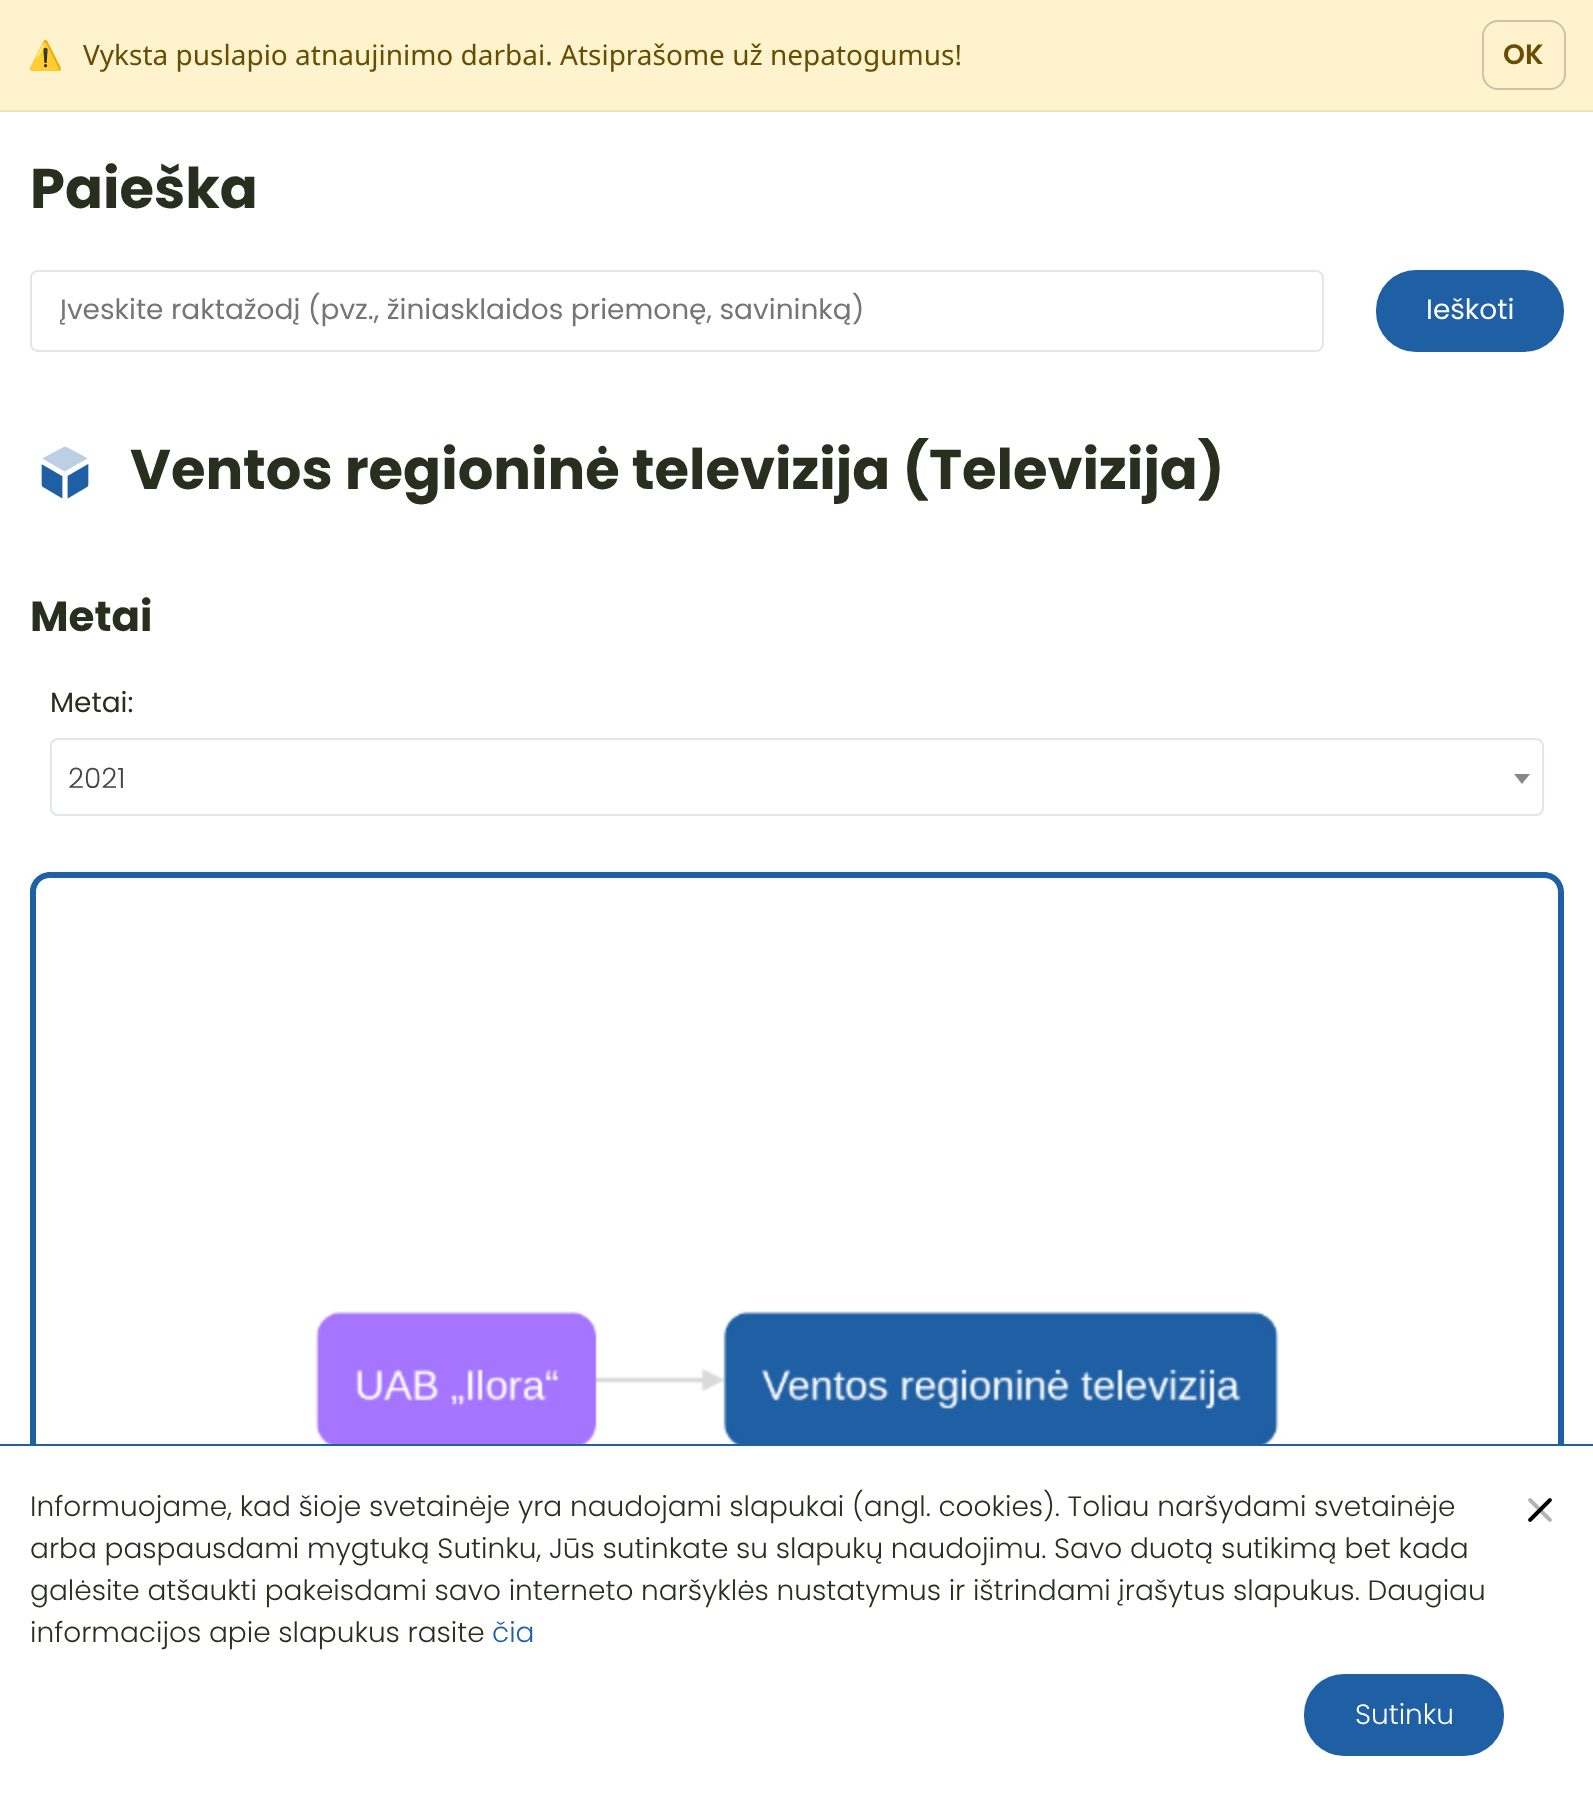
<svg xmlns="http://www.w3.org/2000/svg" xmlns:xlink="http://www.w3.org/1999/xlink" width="1593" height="1796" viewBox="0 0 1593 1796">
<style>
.cls-1{font:28px Noto Color Emoji;fill:#664d03}
.cls-2{font:28px Noto Sans;fill:#664d03}
.cls-3{font:600 28px Poppins;fill:#664d03}
.cls-4{font:bold 56px Poppins;fill:#292e1e}
.cls-5{font:28px Poppins;fill:#757575}
.cls-6{font:28px Poppins;fill:#ffffff}
.cls-7{font:bold 42px Poppins;fill:#292e1e}
.cls-8{font:28px Poppins;fill:#292e1e}
.cls-9{font:300 28px Poppins;fill:#444444}
.cls-10{font:300 28px Poppins;fill:#292e1e}
.cls-11{font:300 28px Poppins;fill:#1f5fa3}
.cls-12{font:300 28px Poppins;fill:#ffffff}
</style>
<defs>
<clipPath id="clip1"><rect x="60" y="290" width="1234" height="42"/></clipPath>
</defs>
<rect width="100%" height="100%" fill="#ffffff"/>
<rect fill="#fff3cd" x="0" y="0" width="1593" height="110"/>
<rect fill="#ebe0bd" x="0" y="110" width="1593" height="2"/>
<rect fill="none" stroke="#ccc2a4" stroke-width="2" x="1483" y="21" width="82" height="68" rx="15"/>
<rect fill="none" stroke="#e2e5ec" stroke-width="2" x="31" y="271" width="1292" height="80" rx="7"/>
<rect fill="#1f5fa3" x="1376" y="270" width="188" height="82" rx="40"/>
<image xlink:href="image0.png" x="41" y="446" width="48" height="53"/>
<rect fill="none" stroke="#e2e5ec" stroke-width="2" x="51" y="739" width="1492" height="76" rx="7"/>
<path fill="#888888" d="M1514 774H1530L1522 784Z"/>
<path fill="#1f5fa3" fill-rule="evenodd" d="M50 872H1544C1555 872 1564 881 1564 892V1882H30V892C30 881 39 872 50 872ZM50 878H1544C1552 878 1558 884 1558 892V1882H36V892C36 884 42 878 50 878Z"/>
<image xlink:href="image1.png" x="315" y="1311" width="964" height="133"/>
<rect fill="#ffffff" x="30" y="1446" width="1534" height="350"/>
<rect fill="#1f5fa3" x="0" y="1444" width="1593" height="2"/>
<image xlink:href="image2.png" x="1528" y="1498" width="24" height="24"/>
<rect fill="#1f5fa3" x="1304" y="1674" width="200" height="82" rx="40"/>
<text class="cls-1" x="28" y="65">⚠️</text>
<text class="cls-2" x="83" y="65">Vyksta puslapio atnaujinimo darbai. Atsiprašome už nepatogumus!</text>
<text class="cls-3" x="1503" y="64">OK</text>
<text class="cls-4" x="30" y="208">Paieška</text>
<g clip-path="url(#clip1)">
<text class="cls-5" x="60" y="319">Įveskite raktažodį (pvz., žiniasklaidos priemonę, savininką)</text>
</g>
<text class="cls-6" x="1426" y="319">Ieškoti</text>
<text class="cls-4" x="130" y="489">Ventos regioninė televizija (Televizija)</text>
<text class="cls-7" x="30" y="631">Metai</text>
<text class="cls-8" x="50" y="712">Metai:</text>
<text class="cls-9" x="68" y="788">2021</text>
<text class="cls-10"><tspan x="30" y="1516">Informuojame, kad šioje svetainėje yra naudojami slapukai (angl. cookies). Toliau naršydami svetainėje</tspan><tspan x="30" y="1558">arba paspausdami mygtuką Sutinku, Jūs sutinkate su slapukų naudojimu. Savo duotą sutikimą bet kada</tspan><tspan x="30" y="1600">galėsite atšaukti pakeisdami savo interneto naršyklės nustatymus ir ištrindami įrašytus slapukus. Daugiau</tspan><tspan x="30" y="1642">informacijos apie slapukus rasite</tspan></text>
<text class="cls-11" x="492" y="1642">čia</text>
<text class="cls-12" x="1355" y="1724">Sutinku</text>
</svg>
